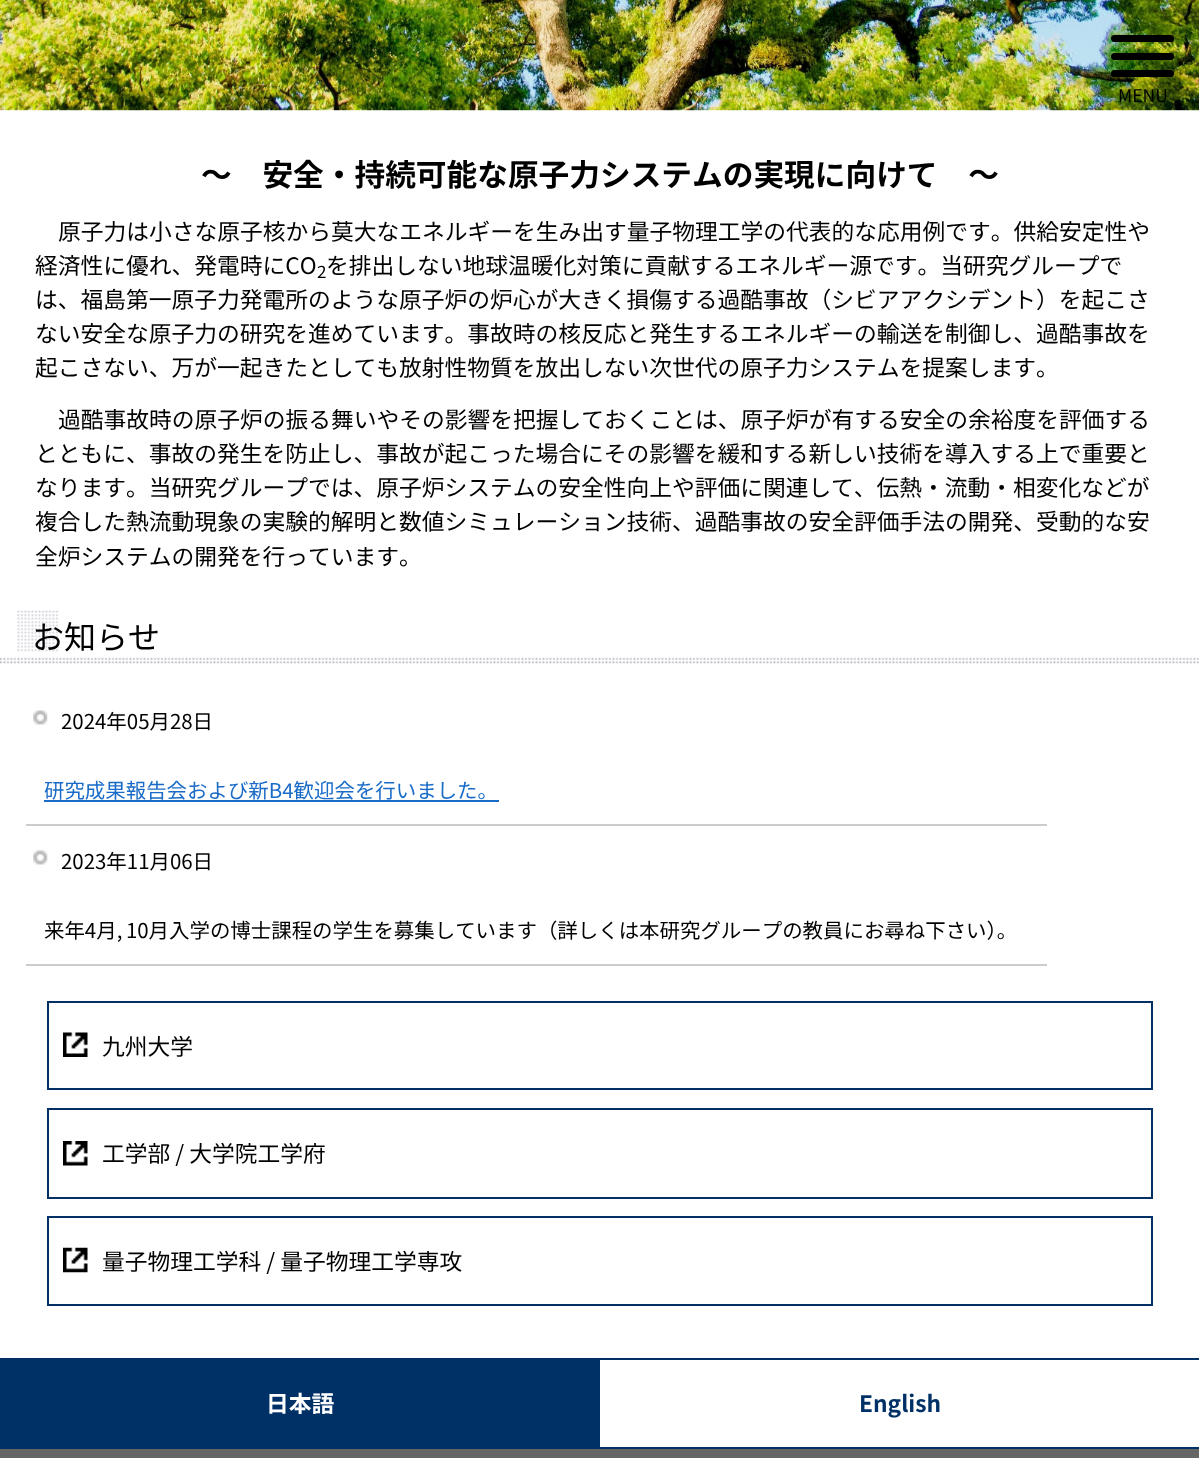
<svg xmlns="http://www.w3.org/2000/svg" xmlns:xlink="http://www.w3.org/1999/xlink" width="1199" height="1458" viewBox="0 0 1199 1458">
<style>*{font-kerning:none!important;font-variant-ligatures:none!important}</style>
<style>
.cls-1{font:17.5px Noto Sans JP;fill:#000000}
.cls-2{font:bold 30.7px Noto Sans JP;fill:#000000}
.cls-3{font:22.75px Noto Sans JP;fill:#000000}
.cls-4{font:17px Noto Sans JP;fill:#000000}
.cls-5{font:32px Noto Sans JP;fill:#000000}
.cls-6{font:20.45px Noto Sans JP;fill:#000000}
.cls-7{font:20.45px Noto Sans JP;fill:#196bc7}
.cls-8{font:bold 22.75px Noto Sans JP;fill:#ffffff}
.cls-9{font:bold 22.75px Noto Sans JP;fill:#003166}
</style>
<rect width="100%" height="100%" fill="#ffffff"/>
<image xlink:href="image0.png" x="0" y="0" width="1199" height="111"/>
<rect fill="#000000" x="1111" y="35" width="63" height="7" rx="3.5"/>
<rect fill="#000000" x="1111" y="53" width="63" height="7" rx="3.5"/>
<rect fill="#000000" x="1111" y="70" width="63" height="7" rx="3.5"/>
<rect fill="#cccccc" x="26" y="824" width="1021" height="2"/>
<image xlink:href="image2.png" x="33" y="710" width="15" height="15"/>
<rect fill="#196bc7" x="44" y="800" width="455" height="2"/>
<rect fill="#cccccc" x="26" y="964" width="1021" height="2"/>
<image xlink:href="image2.png" x="33" y="850" width="15" height="15"/>
<image xlink:href="image3.png" x="63" y="1032" width="25" height="25"/>
<rect fill="none" stroke="#003166" stroke-width="2" x="48" y="1002" width="1104" height="87"/>
<image xlink:href="image4.png" x="63" y="1141" width="25" height="25"/>
<rect fill="none" stroke="#003166" stroke-width="2" x="48" y="1109" width="1104" height="89"/>
<image xlink:href="image5.png" x="63" y="1247" width="25" height="26"/>
<rect fill="none" stroke="#003166" stroke-width="2" x="48" y="1217" width="1104" height="88"/>
<rect fill="#003166" x="0" y="1358" width="600" height="91"/>
<rect fill="#003166" x="600" y="1358" width="599" height="2"/>
<rect fill="#003166" x="600" y="1447" width="599" height="2"/>
<rect fill="#666666" x="0" y="1449" width="1199" height="9"/>
<text class="cls-1" x="1118" y="102">MENU</text>
<text class="cls-2" x="201" y="186">〜　安全・持続可能な原子力システムの実現に向けて　〜</text>
<text class="cls-3" x="58" y="240">原子力は小さな原子核から莫大なエネルギーを生み出す量子物理工学の代表的な応用例です。供給安定性や</text>
<text class="cls-3" x="35" y="274">経済性に優れ、発電時にCO</text>
<text class="cls-4" x="317" y="278">2</text>
<text class="cls-3" x="326" y="274">を排出しない地球温暖化対策に貢献するエネルギー源です。当研究グループで</text>
<text class="cls-3"><tspan x="35" y="308">は、福島第一原子力発電所のような原子炉の炉心が大きく損傷する過酷事故（シビアアクシデント）を起こさ</tspan><tspan x="35" y="342">ない安全な原子力の研究を進めています。事故時の核反応と発生するエネルギーの輸送を制御し、過酷事故を</tspan><tspan x="35" y="376">起こさない、万が一起きたとしても放射性物質を放出しない次世代の原子力システムを提案します</tspan></text>
<text class="cls-3" x="1036" y="376">。</text>
<text class="cls-3" x="58" y="428">過酷事故時の原子炉の振る舞いやその影響を把握しておくことは、原子炉が有する安全の余裕度を評価する</text>
<text class="cls-3"><tspan x="35" y="462">とともに、事故の発生を防止し、事故が起こった場合にその影響を緩和する新しい技術を導入する上で重要と</tspan><tspan x="35" y="496">なります。当研究グループでは、原子炉システムの安全性向上や評価に関連し</tspan></text>
<text class="cls-3" x="831" y="496">て、伝熱・流動・相変化などが</text>
<text class="cls-3"><tspan x="35" y="530">複合した熱流動現象の実験的解明と数値シミュレーション技術、過酷事故の安全評価手法の開発、受動的な安</tspan><tspan x="35" y="565">全炉システムの開発を行っています。</tspan></text>
<text class="cls-5" x="32" y="649">お知らせ</text>
<image xlink:href="image1.png" x="0" y="610" width="1199" height="54"/>
<text class="cls-6" x="61" y="729">2024年05月28日</text>
<text class="cls-7" x="44" y="798">研究成果報告会および新B4歓迎会を行いました。</text>
<text class="cls-6" x="61" y="869">2023年11月06日</text>
<text class="cls-6" x="44" y="938" word-spacing="-1">来年4月, 10月入学の博士課程の学生を募集しています（詳しくは本研究グループの教員にお尋ね下さい）。</text>
<text class="cls-3" x="102" y="1055">九州大学</text>
<text class="cls-3" x="102" y="1162">工学部 / 大学院工学府</text>
<text class="cls-3" x="102" y="1270">量子物理工学科 / 量子物理工学専攻</text>
<text class="cls-8" x="266" y="1412">日本語</text>
<text class="cls-9" x="859" y="1412">English</text>
</svg>
